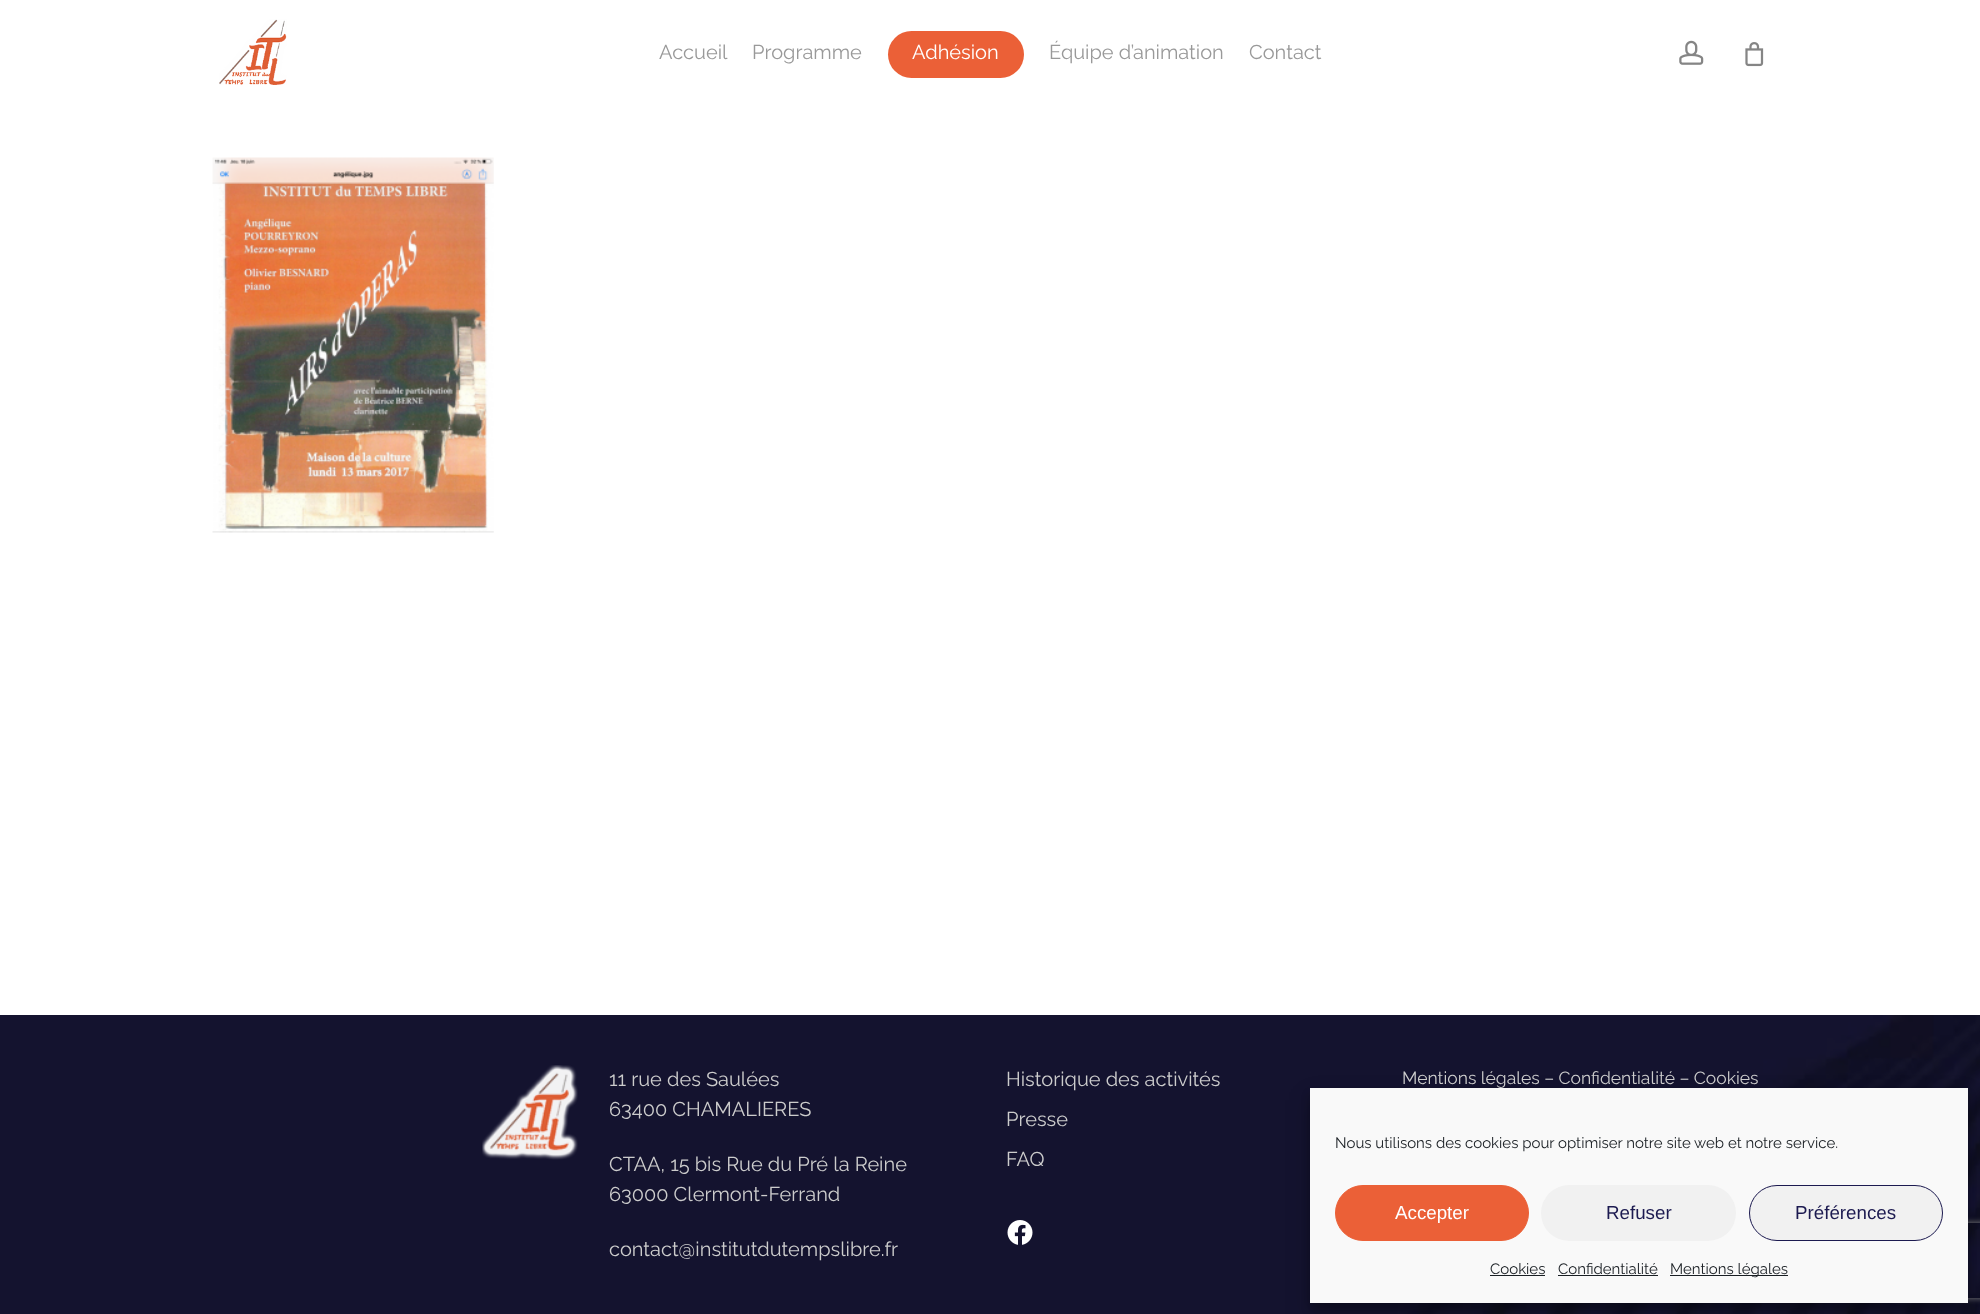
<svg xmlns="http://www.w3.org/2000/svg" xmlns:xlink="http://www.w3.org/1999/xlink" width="1980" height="1314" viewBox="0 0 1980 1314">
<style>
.cls-1{font:20px Raleway;fill:#999999}
.cls-2{font:20px Raleway;fill:#ffffff}
.cls-3{font:20px Raleway;fill:#cccccc}
.cls-4{font:17.5px Raleway;fill:#cccccc}
.cls-5{font:15px Raleway;fill:#191e23}
.cls-6{font:18.75px Liberation Sans;fill:#ffffff}
.cls-7{font:18.75px Liberation Sans;fill:#1c1a50}
</style>
<defs>
<clipPath id="clip1"><path d="M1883 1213H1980V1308H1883ZM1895.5 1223H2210.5C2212 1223 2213 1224 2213 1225.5V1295.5C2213 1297 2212 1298 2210.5 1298H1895.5C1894 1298 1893 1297 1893 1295.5V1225.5C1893 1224 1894 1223 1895.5 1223Z" clip-rule="evenodd"/></clipPath>
</defs>
<rect width="100%" height="100%" fill="#ffffff"/>
<image xlink:href="image0.png" x="219" y="19" width="68" height="66"/>
<rect fill="#eb6037" x="888" y="31" width="136" height="47" rx="23.5"/>
<image xlink:href="image1.png" x="1679" y="40" width="25" height="25"/>
<image xlink:href="image2.png" x="1745" y="42" width="19" height="25"/>
<image xlink:href="image3.png" x="212" y="157" width="282" height="376"/>
<image xlink:href="image4.png" x="0" y="1015" width="1980" height="299"/>
<image xlink:href="image5.png" x="482" y="1065" width="96" height="95"/>
<image xlink:href="image6.png" x="1007" y="1220" width="26" height="25"/>
<rect fill="#000000" fill-opacity="0.23" filter="blur(4px)" x="1310" y="1095" width="658" height="215"/>
<rect fill="#000000" fill-opacity="0.19" filter="blur(12.5px)" x="1310" y="1100" width="658" height="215"/>
<g clip-path="url(#clip1)">
<rect fill="#808080" filter="blur(3px)" x="1893" y="1223" width="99" height="75" rx="2.5"/>
</g>
<rect fill="#f9f9f9" x="1310" y="1088" width="658" height="215"/>
<rect fill="#eb6037" stroke="#eb6037" x="1335.5" y="1185.5" width="193" height="55" rx="27.5"/>
<rect fill="#f1f1f1" x="1541" y="1185" width="195" height="56" rx="28"/>
<rect fill="#f1f1f1" stroke="#1c1a50" x="1749.5" y="1185.5" width="193" height="55" rx="27.5"/>
<rect fill="#191e23" x="1490" y="1275" width="55" height="1"/>
<rect fill="#191e23" x="1558" y="1275" width="100" height="1"/>
<rect fill="#191e23" x="1670" y="1275" width="118" height="1"/>
<text class="cls-1" x="659" y="59">Accueil</text>
<text class="cls-1" x="752" y="59">Programme</text>
<text class="cls-2" x="912" y="59">Adhésion</text>
<text class="cls-1" x="1049" y="59">Équipe d’animation</text>
<text class="cls-1" x="1249" y="59">Contact</text>
<text class="cls-3"><tspan x="609" y="1086">11 rue des Saulées</tspan><tspan x="609" y="1116">63400 CHAMALIERES</tspan></text>
<text class="cls-3"><tspan x="609" y="1171">CTAA, 15 bis Rue du Pré la Reine</tspan><tspan x="609" y="1201">63000 Clermont-Ferrand</tspan></text>
<text class="cls-3" x="609" y="1256">contact@institutdutempslibre.fr</text>
<text class="cls-3" x="1006" y="1086">Historique des activités</text>
<text class="cls-3" x="1006" y="1126">Presse</text>
<text class="cls-3" x="1006" y="1166">FAQ</text>
<text class="cls-4" x="1402" y="1084">Mentions légales – Confidentialité – Cookies</text>
<text class="cls-5" x="1335" y="1148">Nous utilisons des cookies pour optimiser notre site web et notre service.</text>
<text class="cls-6" x="1395" y="1219">Accepter</text>
<text class="cls-7" x="1606" y="1219">Refuser</text>
<text class="cls-7" x="1795" y="1219">Préférences</text>
<text class="cls-5" x="1490" y="1274">Cookies</text>
<text class="cls-5" x="1558" y="1274">Confidentialité</text>
<text class="cls-5" x="1670" y="1274">Mentions légales</text>
</svg>
